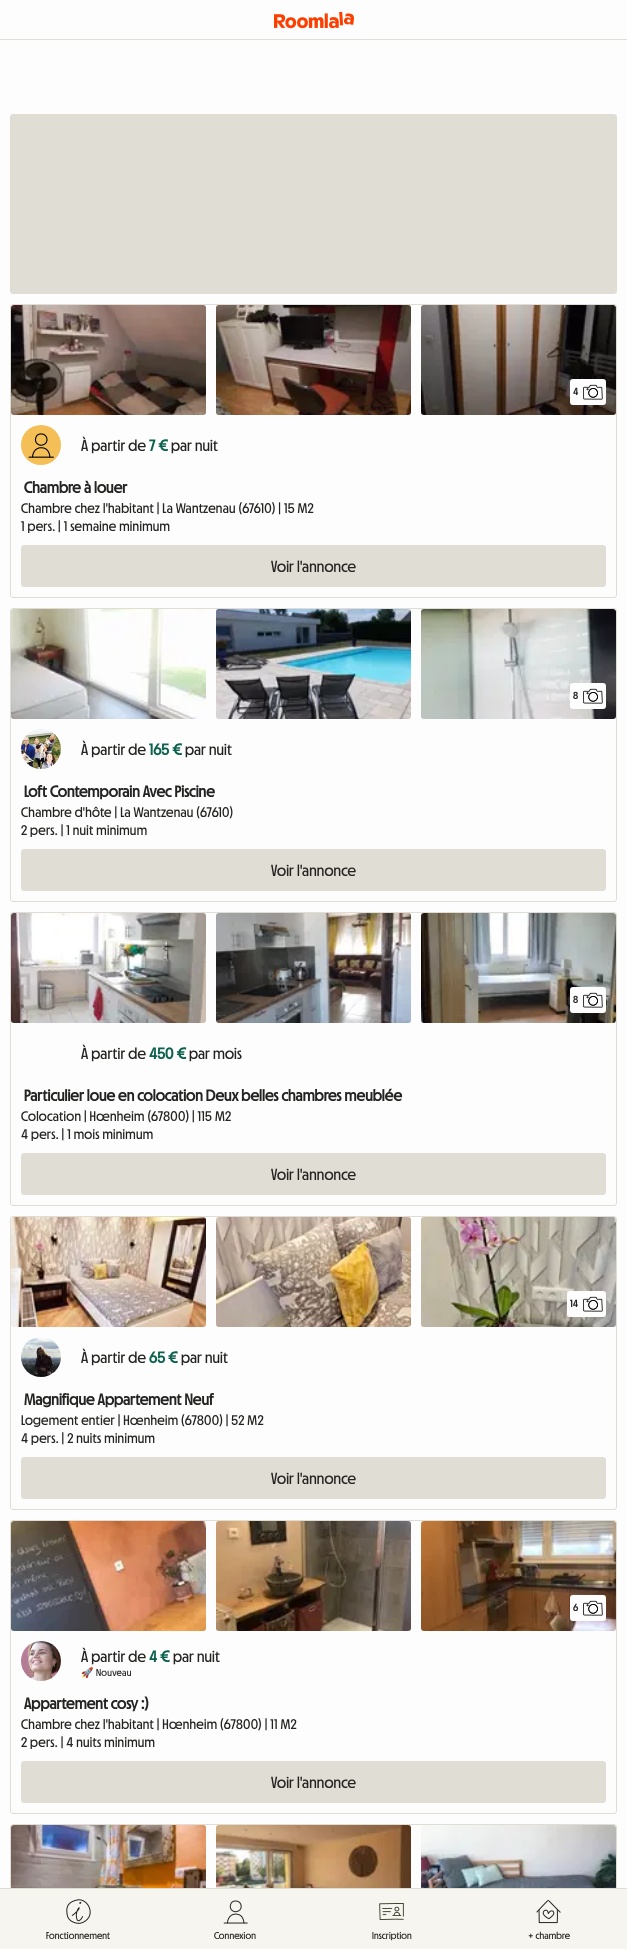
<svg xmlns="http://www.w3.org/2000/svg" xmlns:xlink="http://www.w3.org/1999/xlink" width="627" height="1949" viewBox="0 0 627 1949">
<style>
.cls-1{font:bold 10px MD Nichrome;letter-spacing:0.25px;fill:#242322}
.cls-2{font:16px MD Nichrome;letter-spacing:0.15px;fill:#242322}
.cls-3{font:bold 16px MD Nichrome;letter-spacing:0.15px;fill:#0c624e}
.cls-4{font:bold 16px MD Nichrome;letter-spacing:0.15px;fill:#242322}
.cls-5{font:14px MD Nichrome;letter-spacing:0.28px;fill:#242322}
.cls-6{font:10px Noto Color Emoji;letter-spacing:0.25px;fill:#242322}
.cls-7{font:10px MD Nichrome;letter-spacing:0.25px;fill:#242322}
.cls-8{font:10px MD Nichrome;letter-spacing:0.1px;fill:#242322}
</style>
<rect width="100%" height="100%" fill="#fdfdfd"/>
<rect fill="#e0ddd4" x="0" y="39" width="627" height="1"/>
<image xlink:href="image0.png" x="274" y="11" width="80" height="18"/>
<rect fill="#e0ddd4" stroke="#e0ddd4" x="10.5" y="114.5" width="606" height="179" rx="2.5"/>
<rect fill="none" stroke="#e0ddd4" x="10.5" y="304.5" width="606" height="293" rx="2.5"/>
<image xlink:href="image1.png" x="11" y="305" width="195" height="110"/>
<image xlink:href="image2.png" x="216" y="305" width="195" height="110"/>
<image xlink:href="image3.png" x="421" y="305" width="195" height="110"/>
<rect fill="#fdfdfd" x="570" y="379" width="36" height="26" rx="3"/>
<image xlink:href="image4.png" x="583" y="384" width="20" height="16"/>
<circle fill="#f4bf57" cx="41" cy="445" r="20"/>
<image xlink:href="image5.png" x="28" y="433" width="26" height="25"/>
<rect fill="#e0ddd4" stroke="#e0ddd4" x="21.5" y="545.5" width="584" height="41" rx="2.5"/>
<rect fill="none" stroke="#e0ddd4" x="10.5" y="608.5" width="606" height="293" rx="2.5"/>
<image xlink:href="image6.png" x="11" y="609" width="195" height="110"/>
<image xlink:href="image7.png" x="216" y="609" width="195" height="110"/>
<image xlink:href="image8.png" x="421" y="609" width="195" height="110"/>
<rect fill="#fdfdfd" x="570" y="683" width="36" height="26" rx="3"/>
<image xlink:href="image4.png" x="583" y="688" width="20" height="16"/>
<image xlink:href="image9.png" x="21" y="729" width="40" height="40"/>
<rect fill="#e0ddd4" stroke="#e0ddd4" x="21.5" y="849.5" width="584" height="41" rx="2.5"/>
<rect fill="none" stroke="#e0ddd4" x="10.5" y="912.5" width="606" height="293" rx="2.5"/>
<image xlink:href="image10.png" x="11" y="913" width="195" height="110"/>
<image xlink:href="image11.png" x="216" y="913" width="195" height="110"/>
<image xlink:href="image12.png" x="421" y="913" width="195" height="110"/>
<rect fill="#fdfdfd" x="570" y="987" width="36" height="26" rx="3"/>
<image xlink:href="image4.png" x="583" y="992" width="20" height="16"/>
<rect fill="#e0ddd4" stroke="#e0ddd4" x="21.5" y="1153.5" width="584" height="41" rx="2.5"/>
<rect fill="none" stroke="#e0ddd4" x="10.5" y="1216.5" width="606" height="293" rx="2.5"/>
<image xlink:href="image13.png" x="11" y="1217" width="195" height="110"/>
<image xlink:href="image14.png" x="216" y="1217" width="195" height="110"/>
<image xlink:href="image15.png" x="421" y="1217" width="195" height="110"/>
<rect fill="#fdfdfd" x="567" y="1291" width="39" height="26" rx="3"/>
<image xlink:href="image4.png" x="583" y="1296" width="20" height="16"/>
<image xlink:href="image16.png" x="21" y="1337" width="40" height="40"/>
<rect fill="#e0ddd4" stroke="#e0ddd4" x="21.5" y="1457.5" width="584" height="41" rx="2.5"/>
<rect fill="none" stroke="#e0ddd4" x="10.5" y="1520.5" width="606" height="293" rx="2.5"/>
<image xlink:href="image17.png" x="11" y="1521" width="195" height="110"/>
<image xlink:href="image18.png" x="216" y="1521" width="195" height="110"/>
<image xlink:href="image19.png" x="421" y="1521" width="195" height="110"/>
<rect fill="#fdfdfd" x="570" y="1595" width="36" height="26" rx="3"/>
<image xlink:href="image4.png" x="583" y="1600" width="20" height="16"/>
<image xlink:href="image20.png" x="21" y="1641" width="40" height="40"/>
<rect fill="#e0ddd4" stroke="#e0ddd4" x="21.5" y="1761.5" width="584" height="41" rx="2.5"/>
<rect fill="none" stroke="#e0ddd4" x="10.5" y="1824.5" width="606" height="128" rx="2.5"/>
<image xlink:href="image21.png" x="11" y="1825" width="195" height="63"/>
<image xlink:href="image22.png" x="216" y="1825" width="195" height="63"/>
<image xlink:href="image23.png" x="421" y="1825" width="195" height="63"/>
<rect fill="#f7f5f0" x="0" y="1889" width="627" height="60"/>
<rect fill="#e0ddd4" x="0" y="1888" width="627" height="1"/>
<image xlink:href="image24.png" x="66" y="1899" width="25" height="25"/>
<image xlink:href="image25.png" x="223" y="1900" width="25" height="24"/>
<image xlink:href="image26.png" x="379" y="1903" width="25" height="17"/>
<image xlink:href="image27.png" x="536" y="1899" width="25" height="25"/>
<text class="cls-1" x="573" y="395">4</text>
<text class="cls-2" x="81" y="451">À partir de</text>
<text class="cls-3" x="149" y="451">7 €</text>
<text class="cls-2" x="171" y="451">par nuit</text>
<text class="cls-4" x="24" y="493">Chambre à louer</text>
<text class="cls-5"><tspan x="21" y="513">Chambre chez l'habitant | La Wantzenau (67610) | 15 M2</tspan><tspan x="21" y="531">1 pers. | 1 semaine minimum</tspan></text>
<text class="cls-2" x="271" y="572">Voir l'annonce</text>
<text class="cls-1" x="573" y="699">8</text>
<text class="cls-2" x="81" y="755">À partir de</text>
<text class="cls-3" x="149" y="755">165 €</text>
<text class="cls-2" x="185" y="755">par nuit</text>
<text class="cls-4" x="24" y="797">Loft Contemporain Avec Piscine</text>
<text class="cls-5"><tspan x="21" y="817">Chambre d'hôte | La Wantzenau (67610)</tspan><tspan x="21" y="835">2 pers. | 1 nuit minimum</tspan></text>
<text class="cls-2" x="271" y="876">Voir l'annonce</text>
<text class="cls-1" x="573" y="1003">8</text>
<text class="cls-2" x="81" y="1059">À partir de</text>
<text class="cls-3" x="149" y="1059">450 €</text>
<text class="cls-2" x="189" y="1059">par mois</text>
<text class="cls-4" x="24" y="1101">Particulier loue en colocation Deux belles chambres meublée</text>
<text class="cls-5"><tspan x="21" y="1121">Colocation | Hœnheim (67800) | 115 M2</tspan><tspan x="21" y="1139">4 pers. | 1 mois minimum</tspan></text>
<text class="cls-2" x="271" y="1180">Voir l'annonce</text>
<text class="cls-1" x="570" y="1307">14</text>
<text class="cls-2" x="81" y="1363">À partir de</text>
<text class="cls-3" x="149" y="1363">65 €</text>
<text class="cls-2" x="181" y="1363">par nuit</text>
<text class="cls-4" x="24" y="1405">Magnifique Appartement Neuf</text>
<text class="cls-5"><tspan x="21" y="1425">Logement entier | Hœnheim (67800) | 52 M2</tspan><tspan x="21" y="1443">4 pers. | 2 nuits minimum</tspan></text>
<text class="cls-2" x="271" y="1484">Voir l'annonce</text>
<text class="cls-1" x="573" y="1611">6</text>
<text class="cls-2" x="81" y="1662">À partir de</text>
<text class="cls-3" x="149" y="1662">4 €</text>
<text class="cls-2" x="173" y="1662">par nuit</text>
<text class="cls-6" x="81" y="1676">🚀</text>
<text class="cls-7" x="96" y="1676">Nouveau</text>
<text class="cls-4" x="24" y="1709">Appartement cosy :)</text>
<text class="cls-5"><tspan x="21" y="1729">Chambre chez l'habitant | Hœnheim (67800) | 11 M2</tspan><tspan x="21" y="1747">2 pers. | 4 nuits minimum</tspan></text>
<text class="cls-2" x="271" y="1788">Voir l'annonce</text>
<text class="cls-8" x="46" y="1939">Fonctionnement</text>
<text class="cls-8" x="214" y="1939">Connexion</text>
<text class="cls-8" x="372" y="1939">Inscription</text>
<text class="cls-8" x="528" y="1939">+ chambre</text>
</svg>
